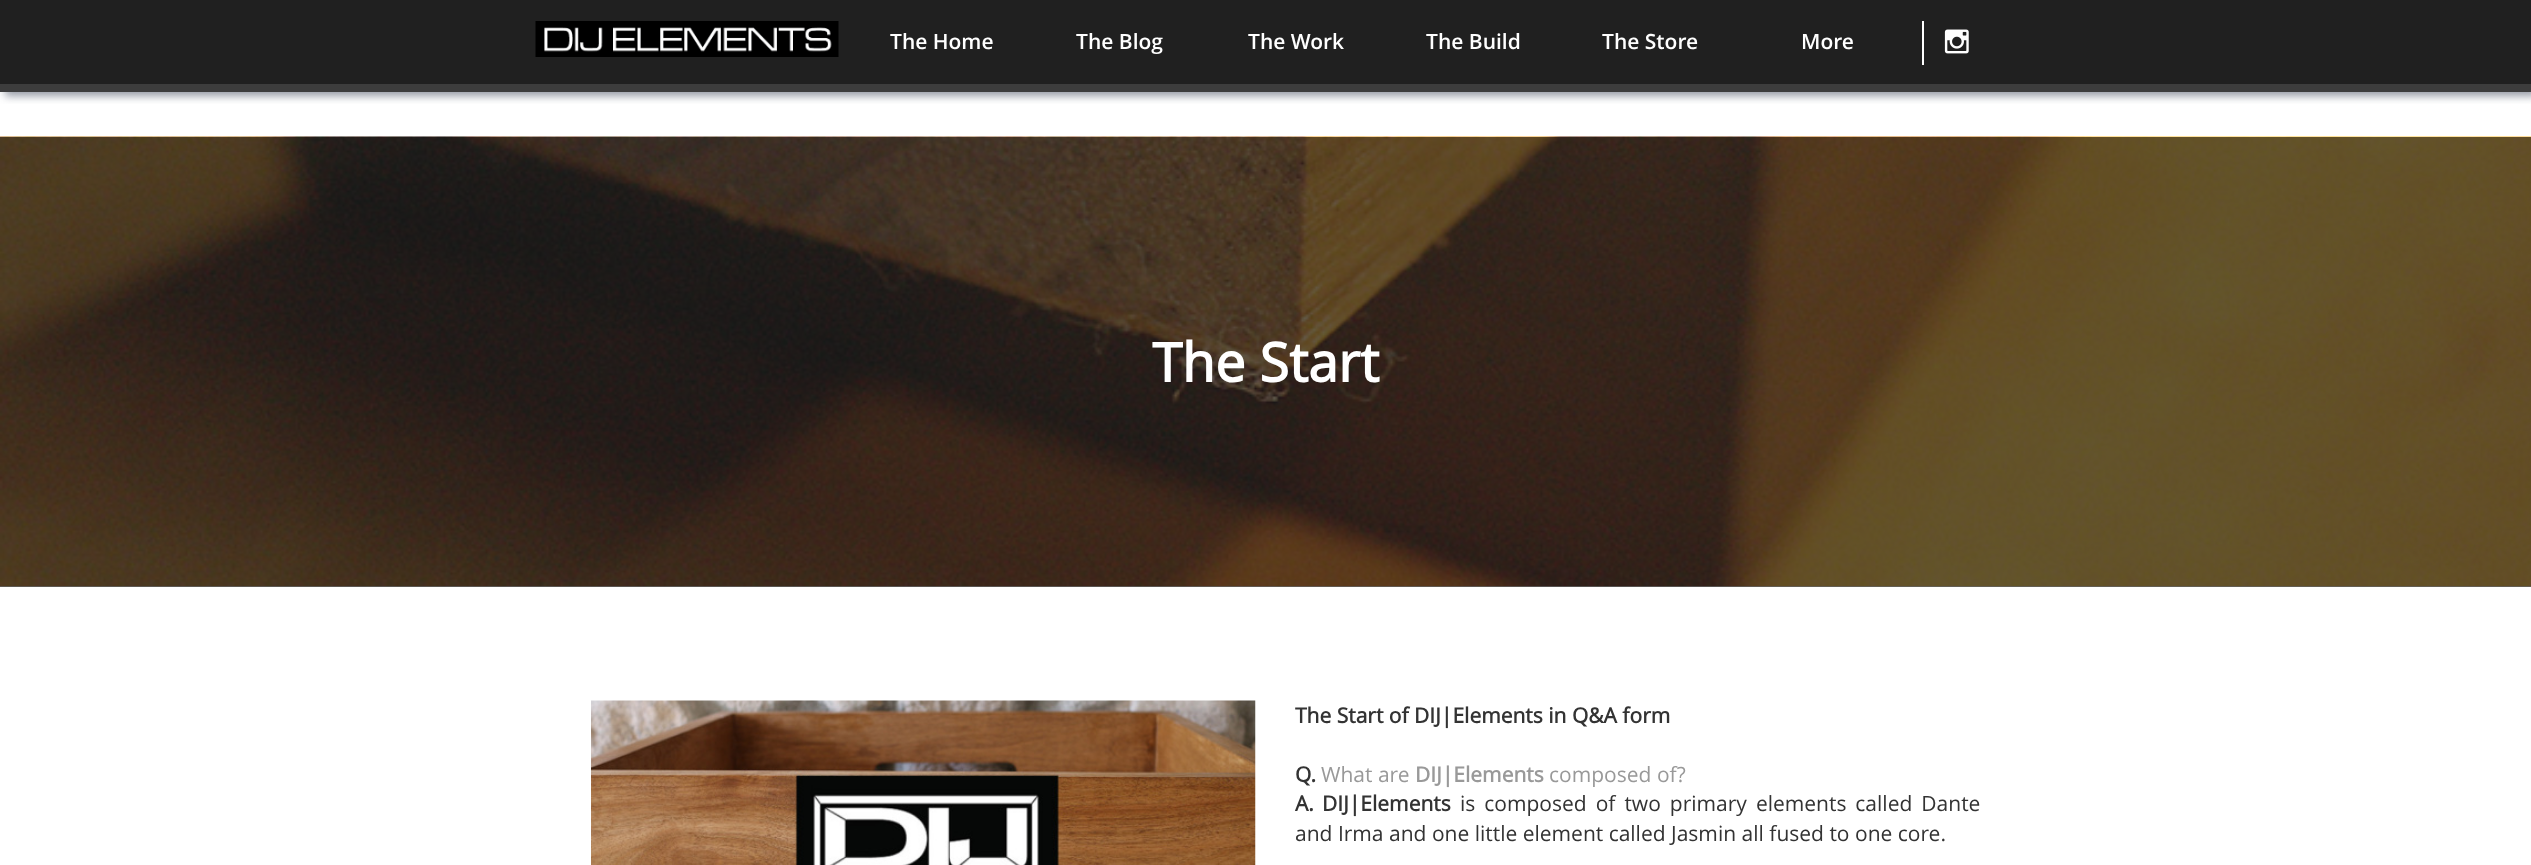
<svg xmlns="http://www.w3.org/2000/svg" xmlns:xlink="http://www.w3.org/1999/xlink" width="2531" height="865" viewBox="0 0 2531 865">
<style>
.cls-1{font:600 21px Open Sans;fill:#ffffff}
.cls-2{font:bold 54px Open Sans;fill:#ffffff}
.cls-3{font:bold 21px Open Sans;fill:#333333}
.cls-4{font:21px Open Sans;fill:#999999}
.cls-5{font:bold 21px Open Sans;fill:#999999}
.cls-6{font:21px Open Sans;fill:#333333}
</style>
<defs>
<clipPath id="clip1"><rect x="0" y="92" width="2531" height="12"/></clipPath>
</defs>
<rect width="100%" height="100%" fill="#ffffff"/>
<rect fill="#202020" x="0" y="0" width="2531" height="84"/>
<g clip-path="url(#clip1)">
<rect fill="#2b364a" fill-opacity="0.5" filter="blur(4.5px)" x="5" y="5" width="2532" height="91"/>
</g>
<rect fill="#3d3d3d" x="0" y="84" width="2531" height="8"/>
<image xlink:href="image0.png" x="535" y="21" width="304" height="36"/>
<rect fill="#ffffff" x="1922" y="21" width="2" height="44"/>
<image xlink:href="image1.png" x="1944" y="29" width="25" height="25"/>
<rect fill="#636363" x="0" y="586" width="2531" height="1"/>
<image xlink:href="image2.png" x="0" y="136" width="2531" height="451"/>
<image xlink:href="image3.png" x="591" y="700" width="665" height="165"/>
<text class="cls-1" x="890" y="49">The Home</text>
<text class="cls-1" x="1076" y="49">The Blog</text>
<text class="cls-1" x="1248" y="49">The Work</text>
<text class="cls-1" x="1426" y="49">The Build</text>
<text class="cls-1" x="1602" y="49">The Store</text>
<text class="cls-1" x="1801" y="49">More</text>
<text class="cls-2" x="1152" y="382">The Start</text>
<text class="cls-3" x="1295" y="723">The Start of DIJ|Elements in Q&amp;A form</text>
<text class="cls-3" x="1295" y="782">Q.</text>
<text class="cls-4" x="1321" y="782">What are</text>
<text class="cls-5" x="1415" y="782">DIJ|Elements</text>
<text class="cls-4" x="1549" y="782">composed of?</text>
<text class="cls-3" x="1295" y="811">A.</text>
<text class="cls-3" x="1322" y="811">DIJ|Elements</text>
<text class="cls-6" x="1460" y="811" word-spacing="3.5">is composed of two primary elements called Dante</text>
<text class="cls-6" x="1295" y="841">and Irma and one little element called Jasmin all fused to one core.</text>
</svg>
